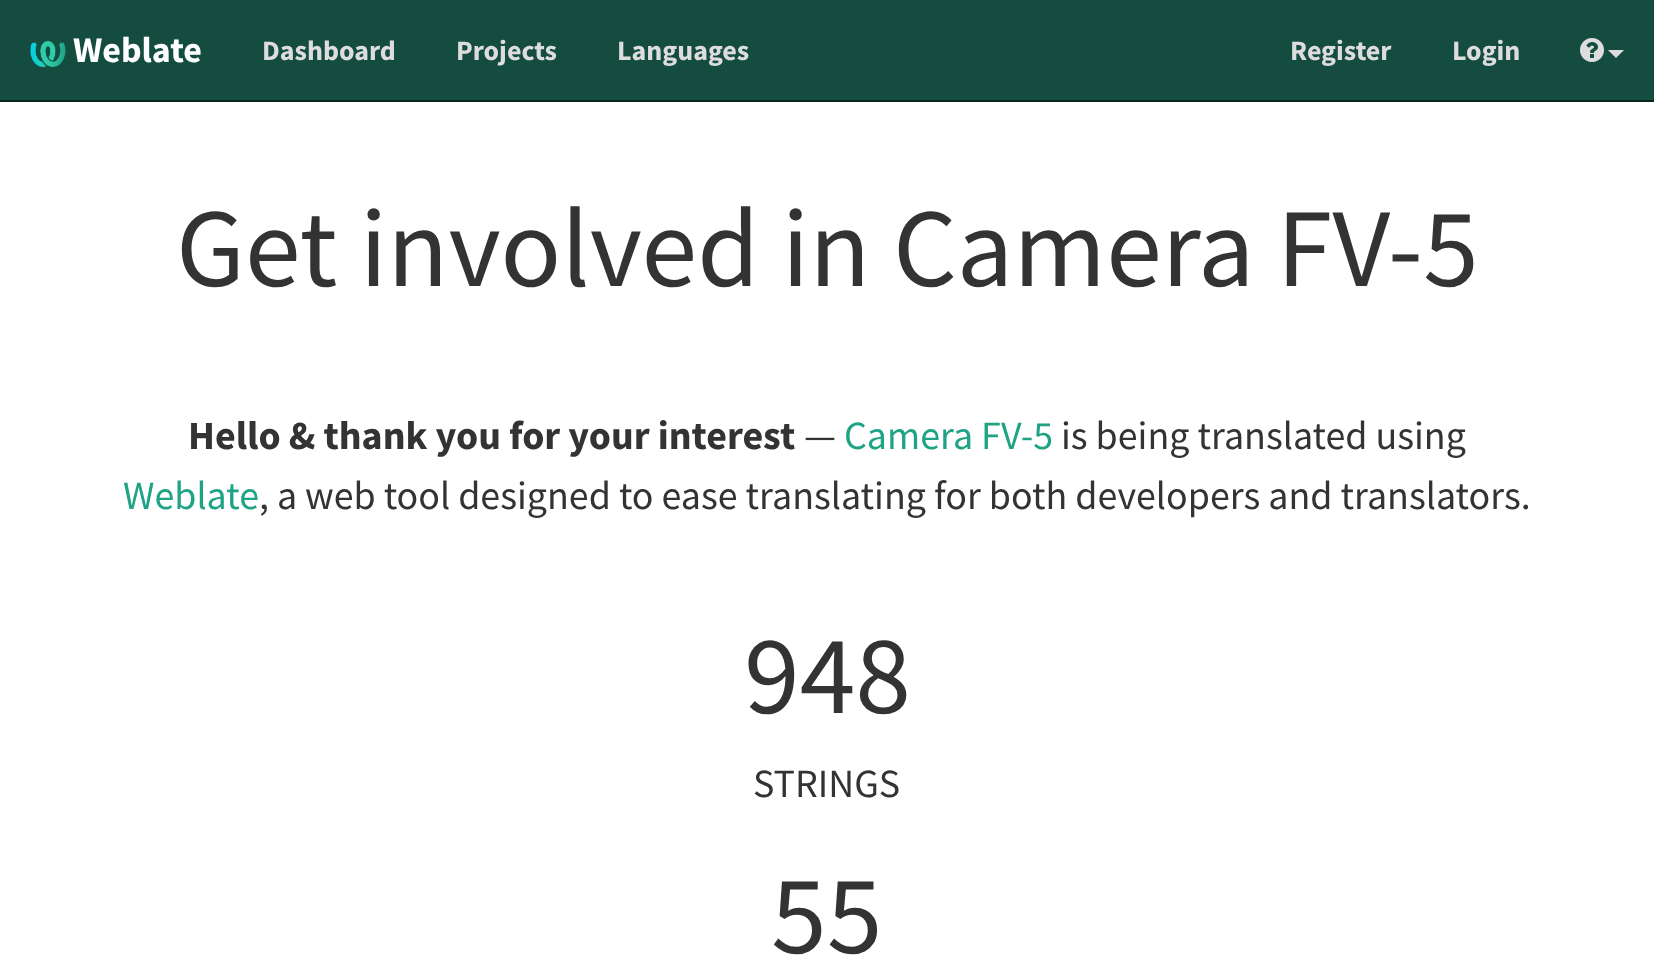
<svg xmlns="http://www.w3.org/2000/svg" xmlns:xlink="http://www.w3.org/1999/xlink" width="1654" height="956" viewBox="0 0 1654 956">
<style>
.cls-1{font:bold 36px Source Sans Pro;fill:#ffffff}
.cls-2{font:bold 28px Source Sans Pro;fill:#dddddd}
.cls-3{font:112px Source Sans Pro;fill:#333333}
.cls-4{font:bold 40px Source Sans Pro;fill:#333333}
.cls-5{font:40px Source Sans Pro;fill:#333333}
.cls-6{font:40px Source Sans Pro;fill:#1fa385}
</style>
<rect width="100%" height="100%" fill="#ffffff"/>
<rect fill="#144d3f" x="0" y="0" width="1654" height="100"/>
<rect fill="#09251e" x="0" y="100" width="1654" height="2"/>
<image xlink:href="image0.png" x="30" y="41" width="36" height="26"/>
<image xlink:href="image1.png" x="1580" y="38" width="24" height="24"/>
<path fill="#dddddd" d="M1608 50H1624L1616 58Z"/>
<text class="cls-1" x="73" y="62">Weblate</text>
<text class="cls-2" x="262" y="60">Dashboard</text>
<text class="cls-2" x="456" y="60">Projects</text>
<text class="cls-2" x="617" y="60">Languages</text>
<text class="cls-2" x="1290" y="60">Register</text>
<text class="cls-2" x="1452" y="60">Login</text>
<text class="cls-3" x="176" y="286">Get involved in Camera FV-5</text>
<text class="cls-4" x="188" y="449">Hello &amp; thank you for your interest</text>
<text class="cls-5" x="804" y="449">—</text>
<text class="cls-6" x="844" y="449">Camera FV-5</text>
<text class="cls-5" x="1061" y="449">is being translated using</text>
<text class="cls-6" x="123" y="509">Weblate</text>
<text class="cls-5" x="259" y="509">, a web tool designed to ease translating for both developers and translators.</text>
<text class="cls-3" x="744" y="713">948</text>
<text class="cls-5" x="753" y="797">STRINGS</text>
<text class="cls-3" x="771" y="953">55</text>
</svg>
